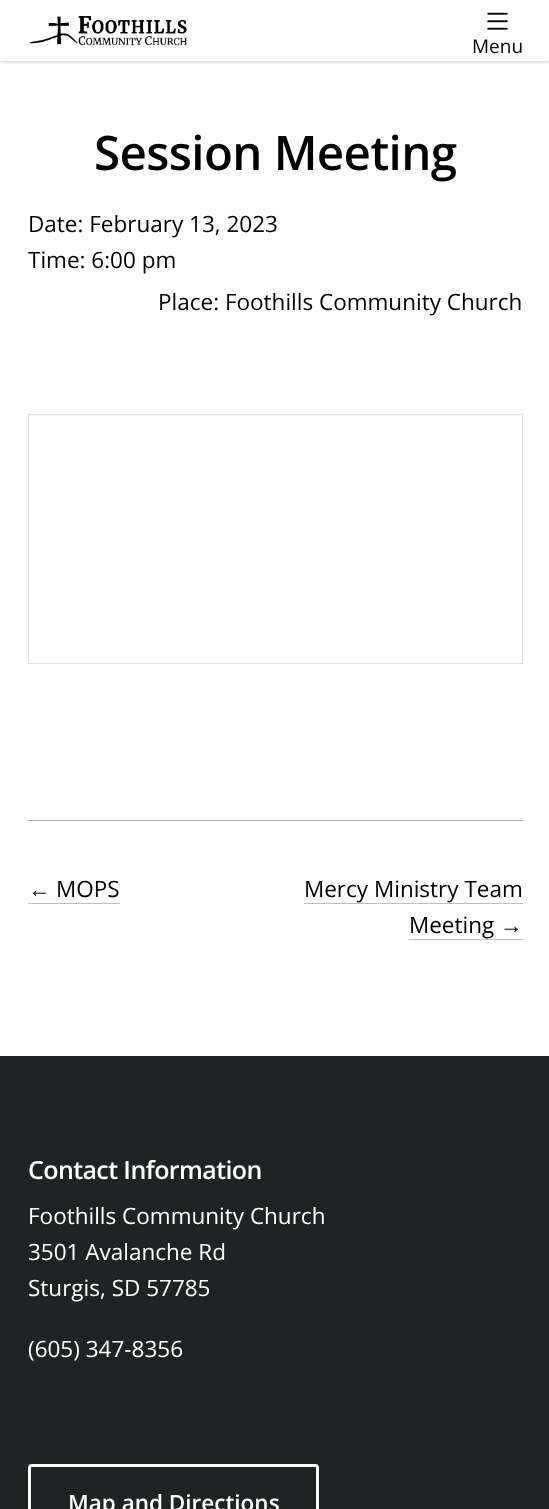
<svg xmlns="http://www.w3.org/2000/svg" xmlns:xlink="http://www.w3.org/1999/xlink" width="549" height="1509" viewBox="0 0 549 1509">
<style>
.cls-1{font:19px Open Sans;fill:#000000}
.cls-2{font:600 47.5px Open Sans;letter-spacing:-0.6px;fill:#000000}
.cls-3{font:22.5px Open Sans;fill:#000000}
.cls-4{font:22.5px Liberation Sans;fill:#000000}
.cls-5{font:600 25px Open Sans;letter-spacing:-0.6px;fill:#ffffff}
.cls-6{font:22.5px Open Sans;fill:#ffffff}
.cls-7{font:600 22.5px Open Sans;fill:#ffffff}
</style>
<defs>
<clipPath id="clip1"><rect x="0" y="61" width="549" height="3"/></clipPath>
</defs>
<rect width="100%" height="100%" fill="#ffffff"/>
<g clip-path="url(#clip1)">
<rect fill="#000000" fill-opacity="0.3" filter="blur(2px)" x="0" y="0" width="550" height="61"/>
</g>
<image xlink:href="image0.png" x="29" y="16" width="158" height="30"/>
<image xlink:href="image1.png" x="487" y="12" width="21" height="18"/>
<rect fill="none" stroke="#dddddd" x="28.5" y="414.5" width="494" height="249"/>
<rect fill="#aaaaaa" x="28" y="820" width="495" height="1"/>
<rect fill="#bfbfbf" x="28" y="903" width="92" height="1"/>
<rect fill="#bfbfbf" x="304" y="903" width="219" height="1"/>
<rect fill="#bfbfbf" x="409" y="939" width="114" height="1"/>
<rect fill="#202324" x="0" y="1056" width="549" height="453"/>
<rect fill="none" stroke="#ffffff" stroke-width="3" x="29.5" y="1465.5" width="288" height="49" rx="2.5"/>
<text class="cls-1" x="472" y="53">Menu</text>
<text class="cls-2" x="94" y="170">Session Meeting</text>
<text class="cls-3"><tspan x="28" y="232">Date: February 13, 2023</tspan><tspan x="28" y="268">Time: 6:00 pm</tspan></text>
<text class="cls-3" x="158" y="310">Place: Foothills Community Church</text>
<text class="cls-4" x="28" y="897">←</text>
<text class="cls-3" x="56" y="897">MOPS</text>
<text class="cls-3" x="304" y="897">Mercy Ministry Team</text>
<text class="cls-3" x="409" y="933">Meeting</text>
<text class="cls-4" x="500" y="933">→</text>
<text class="cls-5" x="28" y="1179">Contact Information</text>
<text class="cls-6"><tspan x="28" y="1224">Foothills Community Church</tspan><tspan x="28" y="1260">3501 Avalanche Rd</tspan><tspan x="28" y="1296">Sturgis, SD 57785</tspan></text>
<text class="cls-6" x="28" y="1357">(605) 347-8356</text>
<text class="cls-7" x="68" y="1511">Map and Directions</text>
</svg>
